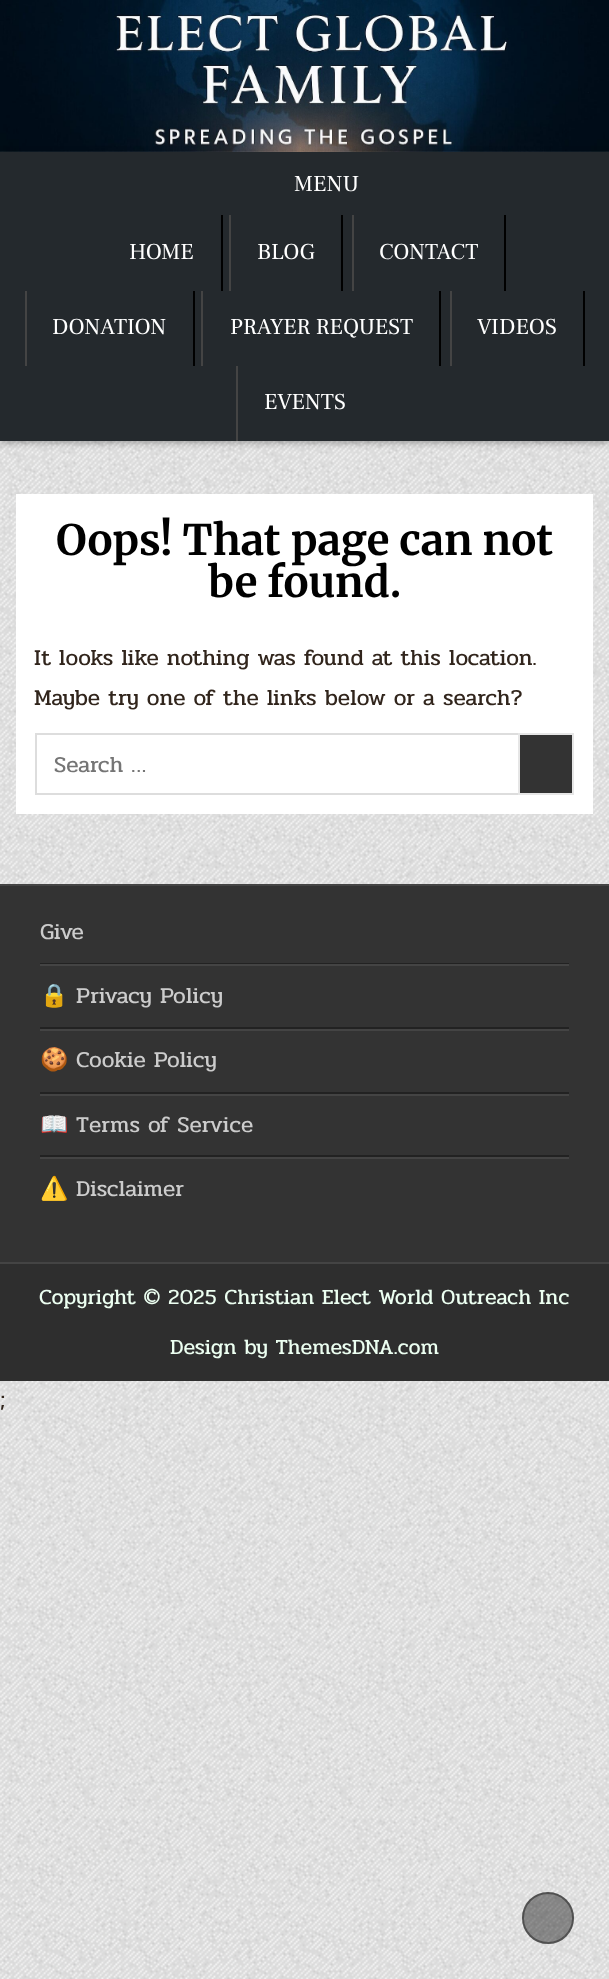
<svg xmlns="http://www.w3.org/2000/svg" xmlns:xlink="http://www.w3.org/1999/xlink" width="609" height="1979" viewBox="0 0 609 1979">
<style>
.cls-1{font:22.75px Frank Ruhl Libre;fill:#ffffff}
.cls-2{font:bold 42px Merriweather;fill:#000000}
.cls-3{font:22.75px Pridi;fill:#31251c}
.cls-4{font:22.75px Pridi;fill:#757575}
.cls-5{font:22.75px Pridi;fill:#cccccc}
.cls-6{font:22.75px Noto Color Emoji;fill:#cccccc}
.cls-7{font:21.6px Pridi;fill:#ecfff1}
</style>
<rect width="100%" height="100%" fill="#ffffff"/>
<image xlink:href="image0.png" x="0" y="151" width="609" height="1828"/>
<image xlink:href="image1.png" x="0" y="0" width="609" height="152"/>
<rect fill="#000000" fill-opacity="0.3" filter="blur(3.5px)" x="0" y="154" width="609" height="289"/>
<rect fill="#24292d" x="0" y="152" width="609" height="289"/>
<rect fill="#000000" x="221" y="215" width="2" height="76"/>
<rect fill="#000000" x="341" y="215" width="2" height="76"/>
<rect fill="#444444" x="229" y="215" width="2" height="76"/>
<rect fill="#000000" x="504" y="215" width="2" height="76"/>
<rect fill="#444444" x="352" y="215" width="2" height="76"/>
<rect fill="#000000" x="193" y="291" width="2" height="75"/>
<rect fill="#444444" x="25" y="291" width="2" height="75"/>
<rect fill="#000000" x="439" y="291" width="2" height="75"/>
<rect fill="#444444" x="201" y="291" width="2" height="75"/>
<rect fill="#000000" x="583" y="291" width="2" height="75"/>
<rect fill="#444444" x="450" y="291" width="2" height="75"/>
<rect fill="#444444" x="236" y="366" width="2" height="75"/>
<rect fill="#ffffff" x="16" y="494" width="577" height="320"/>
<rect fill="none" stroke="#dddddd" stroke-width="2" x="36" y="734" width="537" height="60"/>
<rect fill="#333333" stroke="#e6e6e6" stroke-width="2" x="519" y="734" width="54" height="60"/>
<rect fill="#333333" x="0" y="886" width="609" height="376"/>
<rect fill="#444444" x="0" y="884" width="609" height="2"/>
<rect fill="#222222" x="40" y="963" width="529" height="1"/>
<rect fill="#444444" x="40" y="964" width="529" height="2"/>
<rect fill="#222222" x="40" y="1027" width="529" height="2"/>
<rect fill="#444444" x="40" y="1029" width="529" height="2"/>
<rect fill="#222222" x="40" y="1092" width="529" height="2"/>
<rect fill="#444444" x="40" y="1094" width="529" height="2"/>
<rect fill="#222222" x="40" y="1155" width="529" height="2"/>
<rect fill="#444444" x="40" y="1157" width="529" height="2"/>
<rect fill="#2e2e2e" x="0" y="1264" width="609" height="117"/>
<rect fill="#444444" x="0" y="1262" width="609" height="2"/>
<circle fill="#000000" fill-opacity="0.4" cx="548" cy="1918" r="26"/>
<circle fill="none" stroke="#000000" stroke-opacity="0.4" stroke-width="2" cx="548" cy="1918" r="25"/>
<text class="cls-1" x="294" y="191">MENU</text>
<text class="cls-1" x="129" y="259">HOME</text>
<text class="cls-1" x="257" y="259">BLOG</text>
<text class="cls-1" x="379" y="259">CONTACT</text>
<text class="cls-1" x="52" y="334">DONATION</text>
<text class="cls-1" x="230" y="334">PRAYER REQUEST</text>
<text class="cls-1" x="477" y="334">VIDEOS</text>
<text class="cls-1" x="264" y="409">EVENTS</text>
<text class="cls-2" x="56" y="555">Oops! That page can not</text>
<text class="cls-2" x="208" y="597">be found.</text>
<text class="cls-3"><tspan x="34" y="665">It looks like nothing was found at this location.</tspan><tspan x="34" y="705">Maybe try one of the links below or a search?</tspan></text>
<text class="cls-4" x="54" y="772">Search …</text>
<text class="cls-5" x="40" y="939">Give</text>
<text class="cls-6" x="40" y="1003">🔒</text>
<text class="cls-5" x="76" y="1003">Privacy Policy</text>
<text class="cls-6" x="40" y="1067">🍪</text>
<text class="cls-5" x="76" y="1067">Cookie Policy</text>
<text class="cls-6" x="40" y="1132">📖</text>
<text class="cls-5" x="76" y="1132">Terms of Service</text>
<text class="cls-6" x="40" y="1196">⚠️</text>
<text class="cls-5" x="76" y="1196">Disclaimer</text>
<text class="cls-7" x="39" y="1304">Copyright © 2025 Christian Elect World Outreach Inc</text>
<text class="cls-7" x="170" y="1354">Design by ThemesDNA.com</text>
<text class="cls-3" x="0" y="1407">;</text>
</svg>
